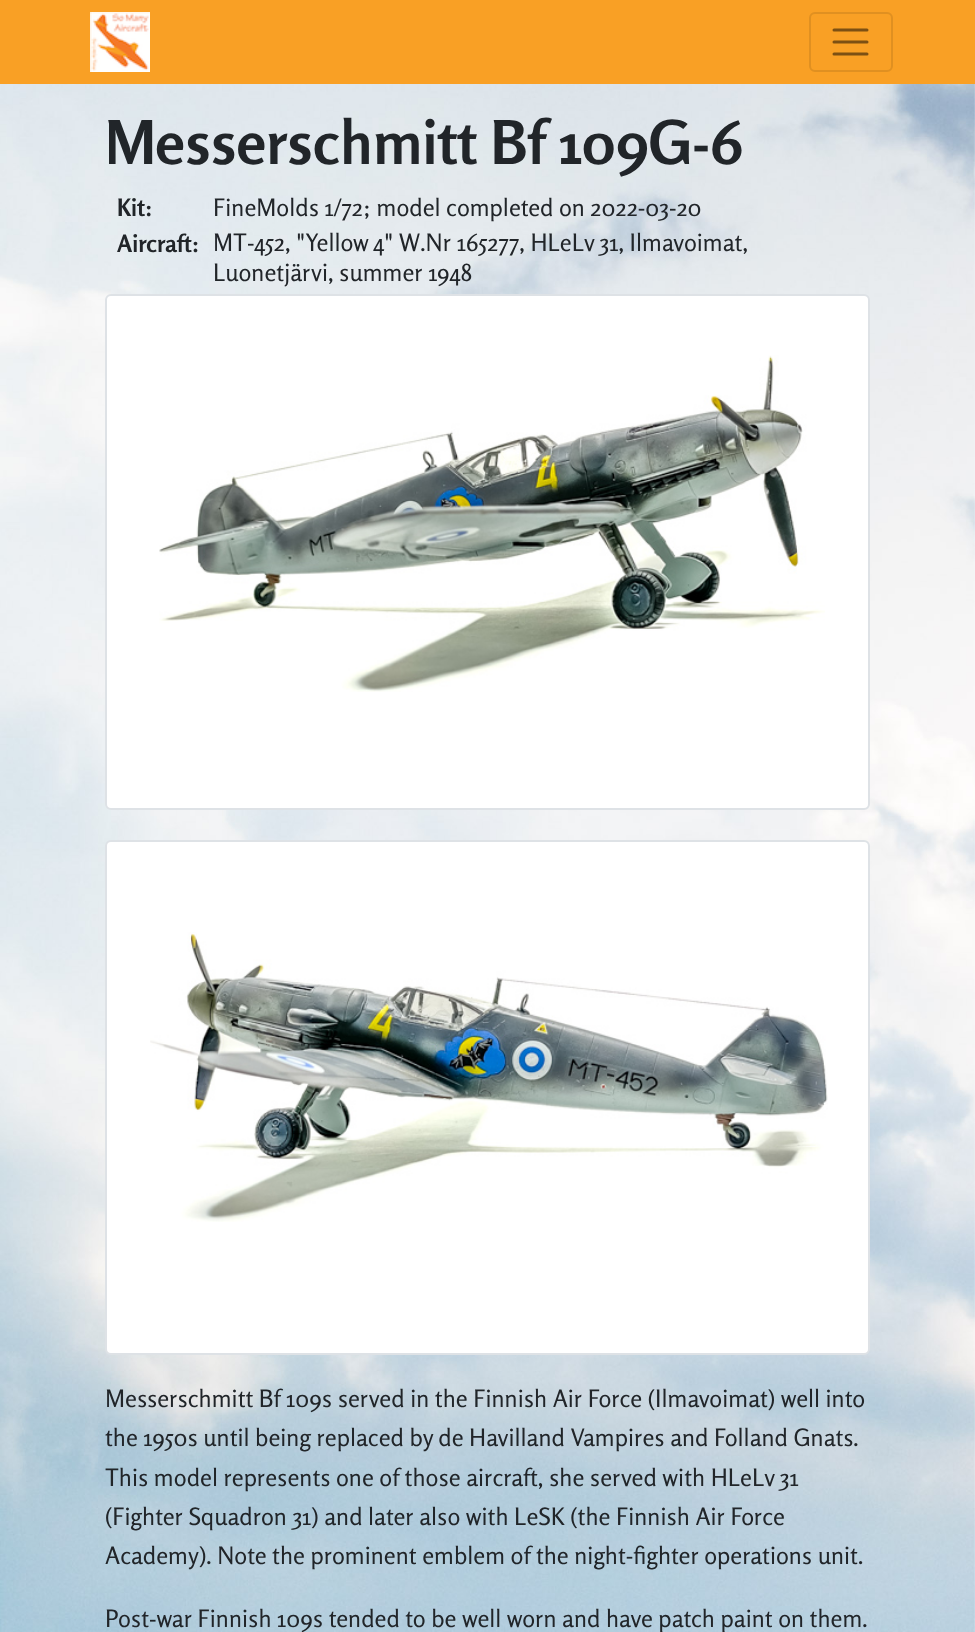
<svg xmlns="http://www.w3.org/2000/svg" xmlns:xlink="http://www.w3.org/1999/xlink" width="975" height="1632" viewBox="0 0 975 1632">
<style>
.cls-1{font:bold 60px Rosario;fill:#212529}
.cls-2{font:bold 24px Rosario;fill:#212529}
.cls-3{font:24px Rosario;fill:#212529}
</style>
<rect width="100%" height="100%" fill="#ffffff"/>
<image xlink:href="image0.png" x="0" y="84" width="975" height="1548"/>
<rect fill="#f9a025" x="0" y="0" width="975" height="84"/>
<image xlink:href="image1.png" x="90" y="12" width="60" height="60"/>
<rect fill="none" stroke="#e09021" stroke-width="2" x="810" y="13" width="82" height="58" rx="5"/>
<path fill="none" stroke="#7d5013" stroke-width="3" stroke-linecap="round" d="M834 30H867M834 42H867M834 54H867"/>
<rect fill="#ffffff" stroke="#dee2e6" stroke-width="2" x="106" y="295" width="763" height="514" rx="5"/>
<image xlink:href="image2.png" x="159" y="355" width="666" height="337"/>
<rect fill="#ffffff" stroke="#dee2e6" stroke-width="2" x="106" y="841" width="763" height="513" rx="5"/>
<image xlink:href="image3.png" x="150" y="932" width="678" height="290"/>
<text class="cls-1" x="105" y="164">Messerschmitt Bf 109G-6</text>
<text class="cls-2" x="117" y="216">Kit:</text>
<text class="cls-3" x="213" y="216">FineMolds 1/72; model completed on 2022-03-20</text>
<text class="cls-2" x="117" y="252">Aircraft:</text>
<text class="cls-3"><tspan x="213" y="251">MT-452, "Yellow 4" W.Nr 165277, HLeLv 31, Ilmavoimat,</tspan><tspan x="213" y="281">Luonetjärvi, summer 1948</tspan></text>
<text class="cls-3"><tspan x="105" y="1407">Messerschmitt Bf 109s served in the Finnish Air Force (Ilmavoimat) well into</tspan><tspan x="105" y="1446">the 1950s until being replaced by de Havilland Vampires and Folland Gnats.</tspan><tspan x="105" y="1486">This model represents one of those aircraft, she served with HLeLv 31</tspan><tspan x="105" y="1525">(Fighter Squadron 31) and later also with LeSK (the Finnish Air Force</tspan><tspan x="105" y="1564">Academy). Note the prominent emblem of the night-fighter operations unit.</tspan></text>
<text class="cls-3" x="105" y="1627">Post-war Finnish 109s tended to be well worn and have patch paint on them.</text>
</svg>
